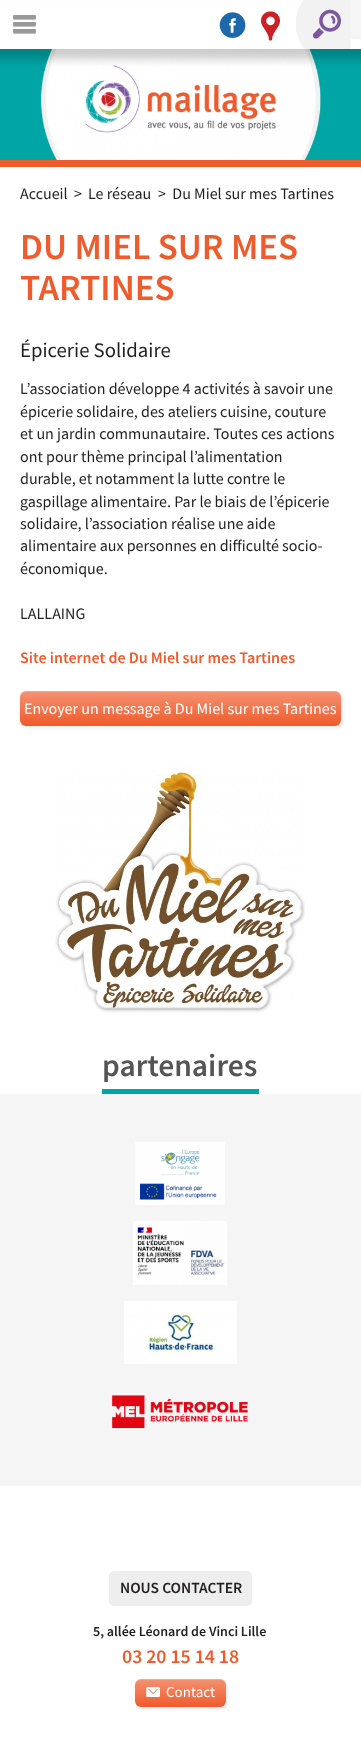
<svg xmlns="http://www.w3.org/2000/svg" xmlns:xlink="http://www.w3.org/1999/xlink" width="361" height="1755" viewBox="0 0 361 1755">
<style>
.cls-1{font:16px Source Sans Pro;fill:#221f1f}
.cls-2{font:600 36.75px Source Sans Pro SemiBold;fill:#ef5b2b}
.cls-3{font:20.75px Source Sans Pro;fill:#221f1f}
.cls-4{font:600 16px Source Sans Pro SemiBold;fill:#ef5b2b}
.cls-5{font:16px Source Sans Pro;fill:#ffffff}
.cls-6{font:600 31.5px Source Sans Pro SemiBold;fill:#555555}
.cls-7{font:600 15.5px Source Sans Pro SemiBold;fill:#221f1f}
.cls-8{font:600 14px Source Sans Pro SemiBold;fill:#221f1f}
.cls-9{font:600 19.75px Source Sans Pro SemiBold;fill:#ef5b2b}
.cls-10{font:15px Source Sans Pro;fill:#ffffff}
</style>
<defs>
<linearGradient id="g1" gradientUnits="userSpaceOnUse" x1="181" y1="691" x2="181" y2="726"><stop offset="0" stop-color="#f49272"/><stop offset="1" stop-color="#ef5b2b"/></linearGradient>
<linearGradient id="g2" gradientUnits="userSpaceOnUse" x1="181" y1="1679" x2="181" y2="1707"><stop offset="0" stop-color="#f49272"/><stop offset="1" stop-color="#ef5b2b"/></linearGradient>
</defs>
<rect width="100%" height="100%" fill="#ffffff"/>
<rect fill="#00a5a5" x="0" y="49" width="361" height="111"/>
<image xlink:href="image3.png" x="40" y="49" width="281" height="111"/>
<rect fill="#000000" fill-opacity="0.2" filter="blur(5px)" x="-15" y="10" width="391" height="49"/>
<rect fill="#ffffff" x="0" y="2" width="361" height="47"/>
<image xlink:href="image0.png" x="219" y="12" width="27" height="26"/>
<image xlink:href="image1.png" x="261" y="11" width="19" height="30"/>
<image xlink:href="image2.png" x="296" y="0" width="55" height="49"/>
<rect fill="#f5f5f5" x="351" y="0" width="10" height="39"/>
<path fill="#bfbfbf" d="M13 18C13 21 14.5 20 17.5 20H31.5C34.5 20 36 21 36 18C36 18.5 35.5 19 35 19H14C13.5 19 13 18.5 13 18Z"/>
<rect fill="#999999" x="13" y="15" width="23" height="4" rx="1"/>
<path fill="#bfbfbf" d="M13 25C13 28 14.5 27 17.5 27H31.5C34.5 27 36 28 36 25C36 25.5 35.5 26 35 26H14C13.5 26 13 25.5 13 25Z"/>
<rect fill="#999999" x="13" y="22" width="23" height="4" rx="1"/>
<path fill="#bfbfbf" d="M13 32C13 35 14.5 34 17.5 34H31.5C34.5 34 36 35 36 32C36 32.5 35.5 33 35 33H14C13.5 33 13 32.5 13 32Z"/>
<rect fill="#999999" x="13" y="29" width="23" height="4" rx="1"/>
<rect fill="#ef5b2b" x="0" y="160" width="361" height="7"/>
<rect fill="#000000" fill-opacity="0.05" filter="blur(1.5px)" x="23" y="694" width="321" height="35" rx="6"/>
<rect fill="url(#g1)" x="20" y="691" width="321" height="35" rx="6"/>
<path fill="#ffffff" fill-opacity="0.2" d="M26 692H335C338 692 341 695 341 698V697C341 694 338 691 335 691H26C23 691 20 694 20 697V698C20 695 23 692 26 692Z"/>
<image xlink:href="image4.png" x="55" y="766" width="250" height="247"/>
<rect fill="#00a5a5" x="102" y="1089" width="157" height="5"/>
<rect fill="#f5f5f5" x="0" y="1094" width="361" height="392"/>
<image xlink:href="image5.png" x="135" y="1142" width="90" height="63"/>
<image xlink:href="image6.png" x="133" y="1221" width="94" height="64"/>
<image xlink:href="image7.png" x="124" y="1301" width="113" height="63"/>
<image xlink:href="image8.png" x="111" y="1395" width="137" height="34"/>
<rect fill="#eeeeee" x="109" y="1571" width="143" height="35" rx="5"/>
<rect fill="#000000" fill-opacity="0.05" filter="blur(1.5px)" x="138" y="1682" width="91" height="28" rx="6"/>
<rect fill="url(#g2)" x="135" y="1679" width="91" height="28" rx="6"/>
<path fill="#ffffff" fill-opacity="0.2" d="M141 1680H220C223 1680 226 1683 226 1686C226 1676 214 1679 207 1679H154C147 1679 135 1676 135 1686C135 1683 138 1680 141 1680Z"/>
<image xlink:href="image9.png" x="146" y="1687" width="14" height="10"/>
<text class="cls-1" x="20" y="199">Accueil</text>
<text class="cls-1" x="74" y="199">&gt;</text>
<text class="cls-1" x="88" y="199">Le réseau</text>
<text class="cls-1" xml:space="preserve" x="158" y="199">&gt;  Du Miel sur mes Tartines</text>
<text class="cls-2"><tspan x="20" y="259">DU MIEL SUR MES</tspan><tspan x="20" y="300">TARTINES</tspan></text>
<text class="cls-3" x="20" y="357">Épicerie Solidaire</text>
<text class="cls-1"><tspan x="20" y="394">L’association développe 4 activités à savoir une</tspan><tspan x="20" y="417">épicerie solidaire, des ateliers cuisine, couture</tspan><tspan x="20" y="439">et un jardin communautaire. Toutes ces actions</tspan><tspan x="20" y="462">ont pour thème principal l’alimentation</tspan><tspan x="20" y="484">durable, et notamment la lutte contre le</tspan><tspan x="20" y="507">gaspillage alimentaire. Par le biais de l’épicerie</tspan><tspan x="20" y="529">solidaire, l’association réalise une aide</tspan><tspan x="20" y="551">alimentaire aux personnes en difficulté socio-</tspan><tspan x="20" y="574">économique.</tspan></text>
<text class="cls-1" x="20" y="619">LALLAING</text>
<text class="cls-4" x="20" y="663">Site internet de Du Miel sur mes Tartines</text>
<text class="cls-5" x="24" y="714">Envoyer un message à Du Miel sur mes Tartines</text>
<text class="cls-6" x="102" y="1076">partenaires</text>
<text class="cls-7" x="120" y="1593">NOUS CONTACTER</text>
<text class="cls-8" x="93" y="1636">5, allée Léonard de Vinci Lille</text>
<text class="cls-9" x="122" y="1663">03 20 15 14 18</text>
<text class="cls-10" x="166" y="1697">Contact</text>
</svg>
